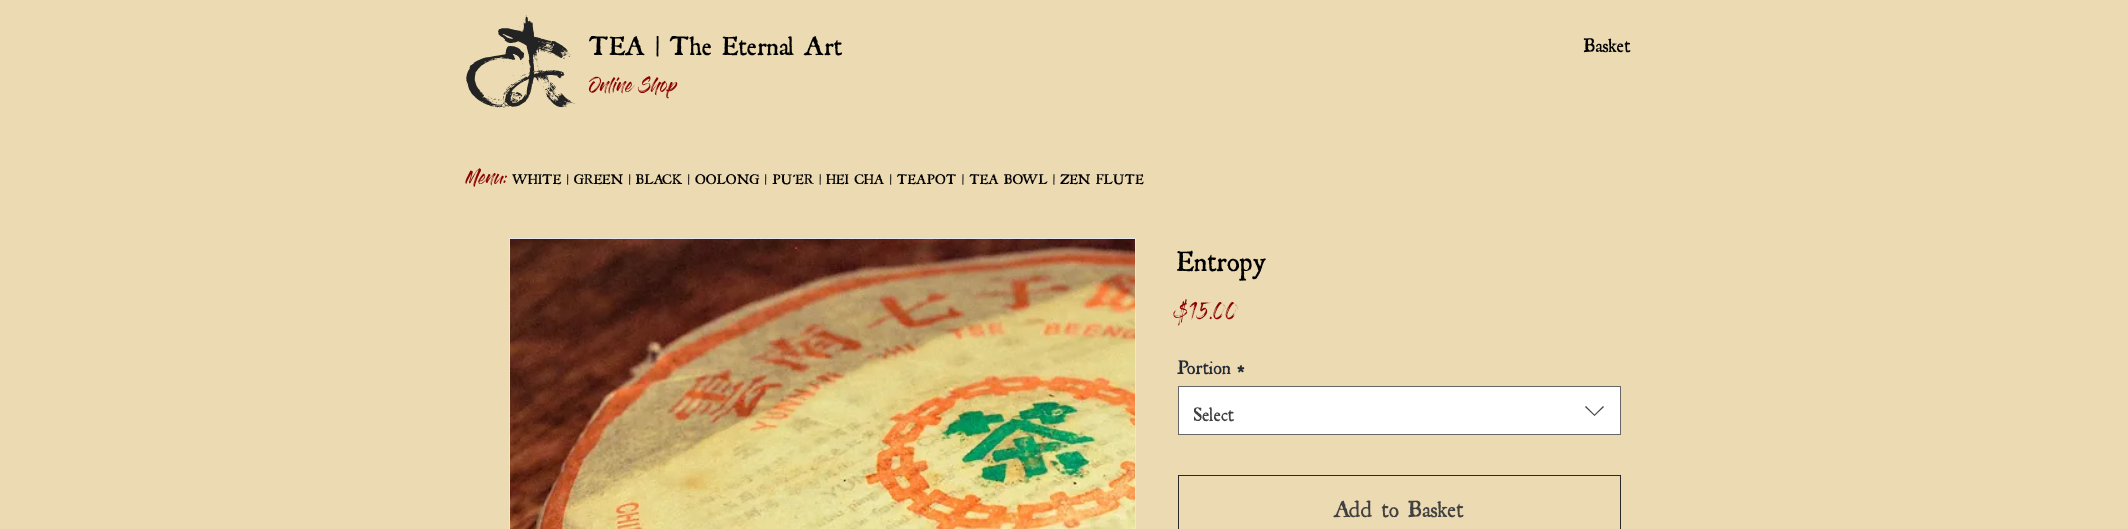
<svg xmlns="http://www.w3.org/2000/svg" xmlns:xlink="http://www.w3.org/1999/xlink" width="2128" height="529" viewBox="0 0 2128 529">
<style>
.cls-1{font:28.75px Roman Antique;fill:#000000}
.cls-2{font:15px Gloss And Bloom;fill:#8b0000}
.cls-3{font:21px Roman Antique;fill:#000000}
.cls-4{font:15px Roman Antique;fill:#000000}
.cls-5{font:31px Roman Antique;fill:#000000}
.cls-6{font:17.5px Gloss And Bloom;fill:#8b0000}
.cls-7{font:21px Roman Antique;fill:#242a35}
.cls-8{font:21px Roman Antique;fill:#414141}
.cls-9{font:25px Roman Antique;fill:#414141}
</style>
<defs>
<clipPath id="clip1"><rect x="1194" y="398" width="380" height="26"/></clipPath>
</defs>
<rect width="100%" height="100%" fill="#ebdab2"/>
<image xlink:href="image0.png" x="466" y="15" width="109" height="93"/>
<rect fill="none" stroke="#e6e7ea" x="509.5" y="238.5" width="626" height="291"/>
<image xlink:href="image1.png" x="510" y="239" width="625" height="290"/>
<rect fill="#ffffff" stroke="#666666" x="1178.5" y="386.5" width="442" height="48"/>
<path fill="#444444" fill-rule="evenodd" d="M1603 406L1604 407L1594.5 416L1585 407L1586 406L1594.5 414.5Z"/>
<rect fill="none" stroke="#282828" x="1178.5" y="475.5" width="442" height="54"/>
<text class="cls-1" x="589" y="55">TEA | The Eternal Art</text>
<text class="cls-2" x="589" y="92">Online Shop</text>
<text class="cls-3" x="1584" y="52">Basket</text>
<text class="cls-2" x="466" y="184">Menu:</text>
<text class="cls-4" x="512" y="184">WHITE | GREEN | BLACK | OOLONG | PU'ER | HEI CHA | TEAPOT | TEA BOWL | ZEN FLUTE</text>
<text class="cls-5" x="1177" y="271">Entropy</text>
<text class="cls-6" x="1177" y="319">$15.00</text>
<text class="cls-7" x="1177" y="374">Portion</text>
<text class="cls-7" x="1237" y="374">*</text>
<g clip-path="url(#clip1)">
<text class="cls-8" x="1193" y="421">Select</text>
</g>
<text class="cls-9" x="1334" y="517">Add to Basket</text>
</svg>
